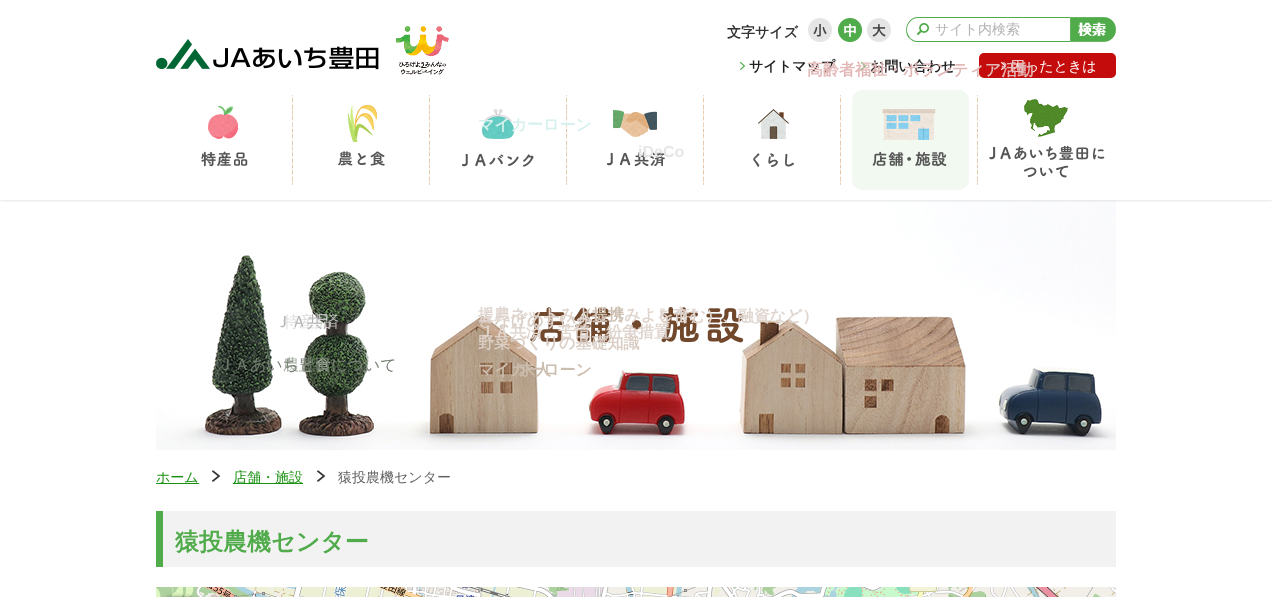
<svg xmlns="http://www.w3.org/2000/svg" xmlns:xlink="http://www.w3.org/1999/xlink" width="1272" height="597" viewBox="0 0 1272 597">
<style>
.cls-1{font:bold 14px WenQuanYi Zen Hei;fill:#333333}
.cls-2{font:500 14px WenQuanYi Zen Hei;fill:#b3b3b3}
.cls-3{font:bold 14px WenQuanYi Zen Hei;fill:#222222}
.cls-4{font:500 14px WenQuanYi Zen Hei;fill:#ffffff}
.cls-5{font:500 16px WenQuanYi Zen Hei;fill:#a4ada0}
.cls-6{font:bold 16px WenQuanYi Zen Hei;fill:#d9cdc4}
.cls-7{font:bold 16px WenQuanYi Zen Hei;fill:#ccbeaf}
.cls-8{font:500 16px WenQuanYi Zen Hei;fill:#dcdedb}
.cls-9{font:500 16px WenQuanYi Zen Hei;fill:#b3b3b3}
.cls-10{font:bold 16px WenQuanYi Zen Hei;fill:#dfd5ce}
.cls-11{font:500 16px WenQuanYi Zen Hei;fill:#757f72}
.cls-12{font:bold 16px WenQuanYi Zen Hei;fill:#e3b9b8}
.cls-13{font:bold 16px WenQuanYi Zen Hei;fill:#d6f1ee}
.cls-14{font:bold 16px Liberation Sans;fill:#e6e6e6}
.cls-15{font:500 14px WenQuanYi Zen Hei;fill:#199111}
.cls-16{font:500 14px WenQuanYi Zen Hei;fill:#616161}
.cls-17{font:bold 24px WenQuanYi Zen Hei;fill:#50ab4a}
</style>
<defs>
<clipPath id="clip1"><rect x="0" y="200" width="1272" height="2"/></clipPath>
</defs>
<rect width="100%" height="100%" fill="#ffffff"/>
<image xlink:href="image24.png" x="156" y="200" width="960" height="250"/>
<g clip-path="url(#clip1)">
<rect fill="#000000" fill-opacity="0.1" filter="blur(1.5px)" x="0" y="1" width="1272" height="200"/>
</g>
<image xlink:href="image0.png" x="156" y="39" width="223" height="31"/>
<image xlink:href="image1.png" x="396" y="26" width="53" height="49"/>
<image xlink:href="image2.png" x="808" y="18" width="24" height="24"/>
<image xlink:href="image3.png" x="838" y="18" width="24" height="24"/>
<image xlink:href="image4.png" x="867" y="18" width="24" height="24"/>
<image xlink:href="image5.png" x="917" y="23" width="12" height="12"/>
<path fill="#50ab4a" fill-rule="evenodd" d="M918 17H1070V42H916C912 41 908 38 907 35C904 27 909 17 918 17ZM918 18H1070V41H916C913 40 910 39 909 36C904 29 909 18 918 18Z"/>
<image xlink:href="image6.png" x="1070" y="17" width="46" height="25"/>
<image xlink:href="image7.png" x="740" y="62" width="5" height="8"/>
<image xlink:href="image7.png" x="861" y="62" width="5" height="8"/>
<rect fill="#c40c0c" x="979" y="53" width="137" height="25" rx="5"/>
<image xlink:href="image8.png" x="1001" y="62" width="5" height="8"/>
<image xlink:href="image9.png" x="758" y="109" width="31" height="30"/>
<image xlink:href="image10.png" x="840" y="95" width="1" height="90"/>
<image xlink:href="image11.png" x="753" y="153" width="41" height="14"/>
<rect fill="#f1f9f1" x="852" y="90" width="117" height="100" rx="10"/>
<image xlink:href="image10.png" x="977" y="95" width="1" height="90"/>
<image xlink:href="image12.png" x="882" y="109" width="54" height="31"/>
<image xlink:href="image13.png" x="872" y="151" width="75" height="16"/>
<image xlink:href="image14.png" x="348" y="105" width="29" height="37"/>
<image xlink:href="image10.png" x="429" y="95" width="1" height="90"/>
<image xlink:href="image15.png" x="338" y="151" width="47" height="15"/>
<image xlink:href="image16.png" x="482" y="109" width="32" height="30"/>
<image xlink:href="image10.png" x="566" y="95" width="1" height="90"/>
<image xlink:href="image17.png" x="462" y="153" width="72" height="14"/>
<image xlink:href="image18.png" x="613" y="110" width="44" height="27"/>
<image xlink:href="image10.png" x="703" y="95" width="1" height="90"/>
<image xlink:href="image19.png" x="607" y="151" width="58" height="16"/>
<image xlink:href="image20.png" x="208" y="106" width="30" height="33"/>
<image xlink:href="image10.png" x="292" y="95" width="1" height="90"/>
<image xlink:href="image21.png" x="201" y="151" width="47" height="16"/>
<image xlink:href="image22.png" x="1024" y="99" width="45" height="38"/>
<image xlink:href="image23.png" x="989" y="145" width="116" height="33"/>
<image xlink:href="image25.png" x="515" y="307" width="243" height="50"/>
<rect fill="#199111" x="156" y="483" width="43" height="1"/>
<image xlink:href="image26.png" x="212" y="470" width="8" height="12"/>
<rect fill="#199111" x="233" y="483" width="70" height="1"/>
<image xlink:href="image26.png" x="317" y="470" width="8" height="12"/>
<rect fill="#f2f2f2" x="163" y="511" width="953" height="56"/>
<rect fill="#50ab4a" x="156" y="511" width="7" height="56"/>
<image xlink:href="image27.png" x="156" y="587" width="112" height="10"/>
<image xlink:href="image28.png" x="268" y="587" width="256" height="10"/>
<image xlink:href="image29.png" x="524" y="587" width="256" height="10"/>
<image xlink:href="image30.png" x="780" y="587" width="256" height="10"/>
<image xlink:href="image31.png" x="1036" y="587" width="80" height="10"/>
<rect fill="#000000" fill-opacity="0.65" filter="blur(2.5px)" x="166" y="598" width="26" height="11" rx="4"/>
<text class="cls-1" x="727" y="37">文字サイズ</text>
<text class="cls-2" x="935" y="34">サイト内検索</text>
<text class="cls-3" x="749" y="71">サイトマップ</text>
<text class="cls-3" x="870" y="71">お問い合わせ</text>
<text class="cls-4" x="1011" y="71">困ったときは</text>
<text class="cls-5" x="283" y="370" transform="rotate(0.1 283 370)">農と食</text>
<text class="cls-6" x="478" y="348" transform="rotate(0.1 478 348)">野菜づくりの基礎知識</text>
<text class="cls-7" x="519" y="375" transform="rotate(0.1 519 375)">求人</text>
<text class="cls-7" x="478" y="375" transform="rotate(0.1 478 375)">マイカーローン</text>
<text class="cls-8" x="283" y="327" transform="rotate(0.1 283 327)">特産品</text>
<text class="cls-9" x="275" y="327" transform="rotate(0.1 275 327)">ＪＡ共済</text>
<text class="cls-6" x="478" y="326" transform="rotate(0.1 478 326)">さなげのすいか</text>
<text class="cls-10" x="478" y="337" transform="rotate(0.1 478 337)">ＪＡ共済　苦情・紛争措置</text>
<text class="cls-10" x="478" y="320" transform="rotate(0.1 478 320)">援農ネットみよし（みよし市）</text>
<text class="cls-10" x="657" y="321" transform="rotate(0.1 657 321)">を含む）、融資など）</text>
<text class="cls-7" x="576" y="320" transform="rotate(0.1 576 320)">（提携</text>
<text class="cls-11" x="218" y="370" transform="rotate(0.1 218 370)">ＪＡあいち豊田について</text>
<text class="cls-12" x="807" y="75" transform="rotate(0.1 807 75)">高齢者福祉・ボランティア活動</text>
<text class="cls-13" x="478" y="130" transform="rotate(0.1 478 130)">マイカーローン</text>
<text class="cls-14" x="638" y="157" transform="rotate(0.1 638 157)">iDeCo</text>
<text class="cls-15" x="156" y="482">ホーム</text>
<text class="cls-15" x="233" y="482">店舗・施設</text>
<text class="cls-16" x="338" y="482">猿投農機センター</text>
<text class="cls-17" x="175" y="550">猿投農機センター</text>
</svg>
